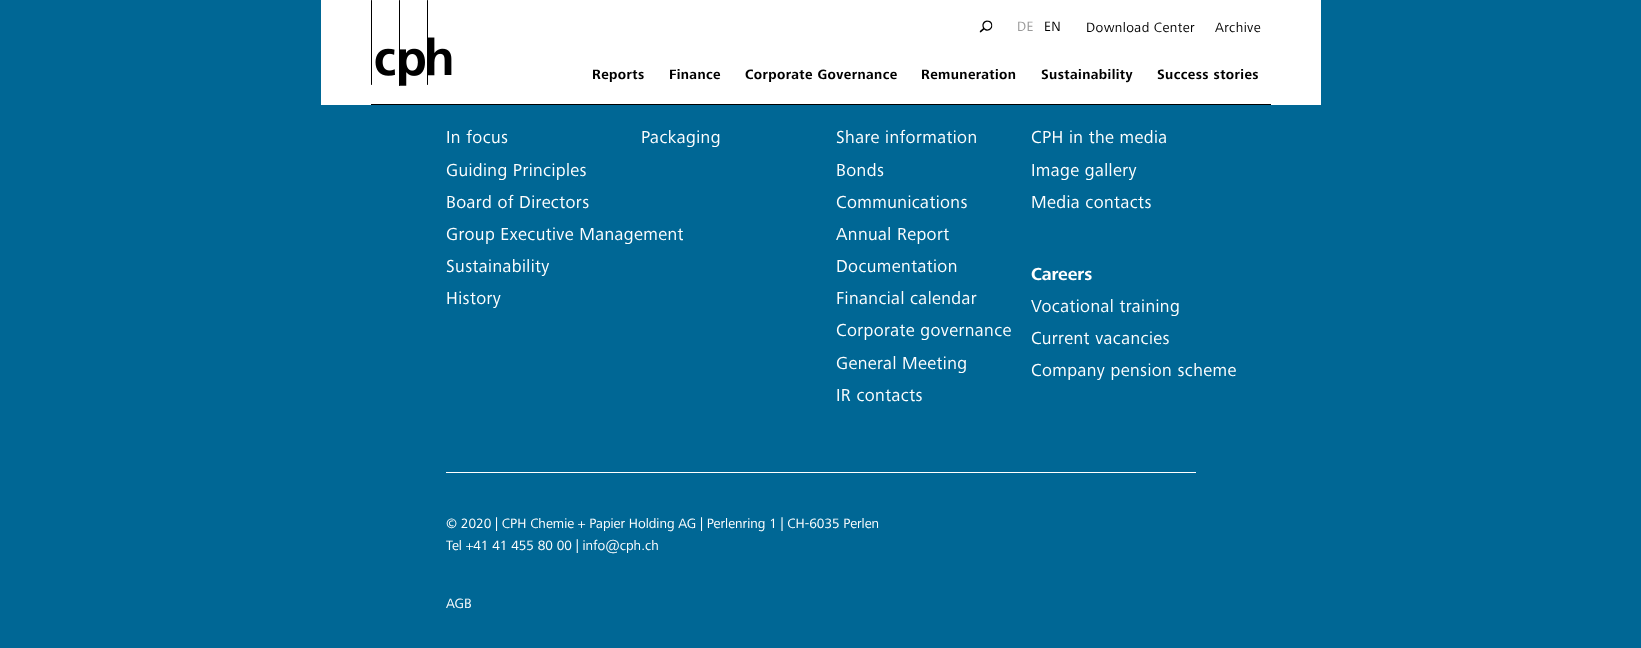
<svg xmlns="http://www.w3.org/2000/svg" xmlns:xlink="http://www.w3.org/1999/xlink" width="1641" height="648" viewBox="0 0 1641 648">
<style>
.cls-1{font:14px 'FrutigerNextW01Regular';letter-spacing:0.4px;fill:#999999}
.cls-2{font:14px 'FrutigerNextW01Regular';letter-spacing:0.4px;fill:#000000}
.cls-3{font:bold 14px 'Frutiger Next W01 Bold';letter-spacing:0.4px;fill:#000000}
.cls-4{font:18px 'FrutigerNextW01Regular';letter-spacing:0.4px;fill:#ffffff}
.cls-5{font:bold 18px 'Frutiger Next W01 Bold';fill:#ffffff}
.cls-6{font:14px 'FrutigerNextW01Regular';fill:#ffffff}
</style>
<rect width="100%" height="100%" fill="#006795"/>
<rect fill="#ffffff" x="321" y="0" width="1000" height="105"/>
<image xlink:href="image0.png" x="371" y="0" width="81" height="86"/>
<image xlink:href="image1.png" x="979" y="20" width="14" height="13"/>
<rect fill="#000000" x="371" y="104" width="900" height="1"/>
<rect fill="#ffffff" x="446" y="472" width="750" height="1"/>
<text class="cls-1" x="1017" y="31">DE</text>
<text class="cls-2" x="1044" y="31">EN</text>
<text class="cls-2" x="1086" y="32">Download Center</text>
<text class="cls-2" x="1215" y="32">Archive</text>
<text class="cls-3" x="592" y="79">Reports</text>
<text class="cls-3" x="669" y="79">Finance</text>
<text class="cls-3" x="745" y="79">Corporate Governance</text>
<text class="cls-3" x="921" y="79">Remuneration</text>
<text class="cls-3" x="1041" y="79">Sustainability</text>
<text class="cls-3" x="1157" y="79">Success stories</text>
<text class="cls-4"><tspan x="446" y="143">In focus</tspan><tspan x="446" y="176">Guiding Principles</tspan><tspan x="446" y="208">Board of Directors</tspan><tspan x="446" y="240">Group Executive Management</tspan><tspan x="446" y="272">Sustainability</tspan><tspan x="446" y="304">History</tspan></text>
<text class="cls-4"><tspan x="836" y="143">Share information</tspan><tspan x="836" y="176">Bonds</tspan><tspan x="836" y="208">Communications</tspan><tspan x="836" y="240">Annual Report</tspan><tspan x="836" y="272">Documentation</tspan><tspan x="836" y="304">Financial calendar</tspan><tspan x="836" y="336">Corporate governance</tspan><tspan x="836" y="369">General Meeting</tspan><tspan x="836" y="401">IR contacts</tspan></text>
<text class="cls-4" x="641" y="143">Packaging</text>
<text class="cls-4"><tspan x="1031" y="143">CPH in the media</tspan><tspan x="1031" y="176">Image gallery</tspan><tspan x="1031" y="208">Media contacts</tspan></text>
<text class="cls-5" x="1031" y="280">Careers</text>
<text class="cls-4"><tspan x="1031" y="312">Vocational training</tspan><tspan x="1031" y="344">Current vacancies</tspan><tspan x="1031" y="376">Company pension scheme</tspan></text>
<text class="cls-6"><tspan x="446" y="528">© 2020 | CPH Chemie + Papier Holding AG | Perlenring 1 | CH-6035 Perlen</tspan><tspan x="446" y="550">Tel +41 41 455 80 00 | info@cph.ch</tspan></text>
<text class="cls-6" x="446" y="608">AGB</text>
</svg>
